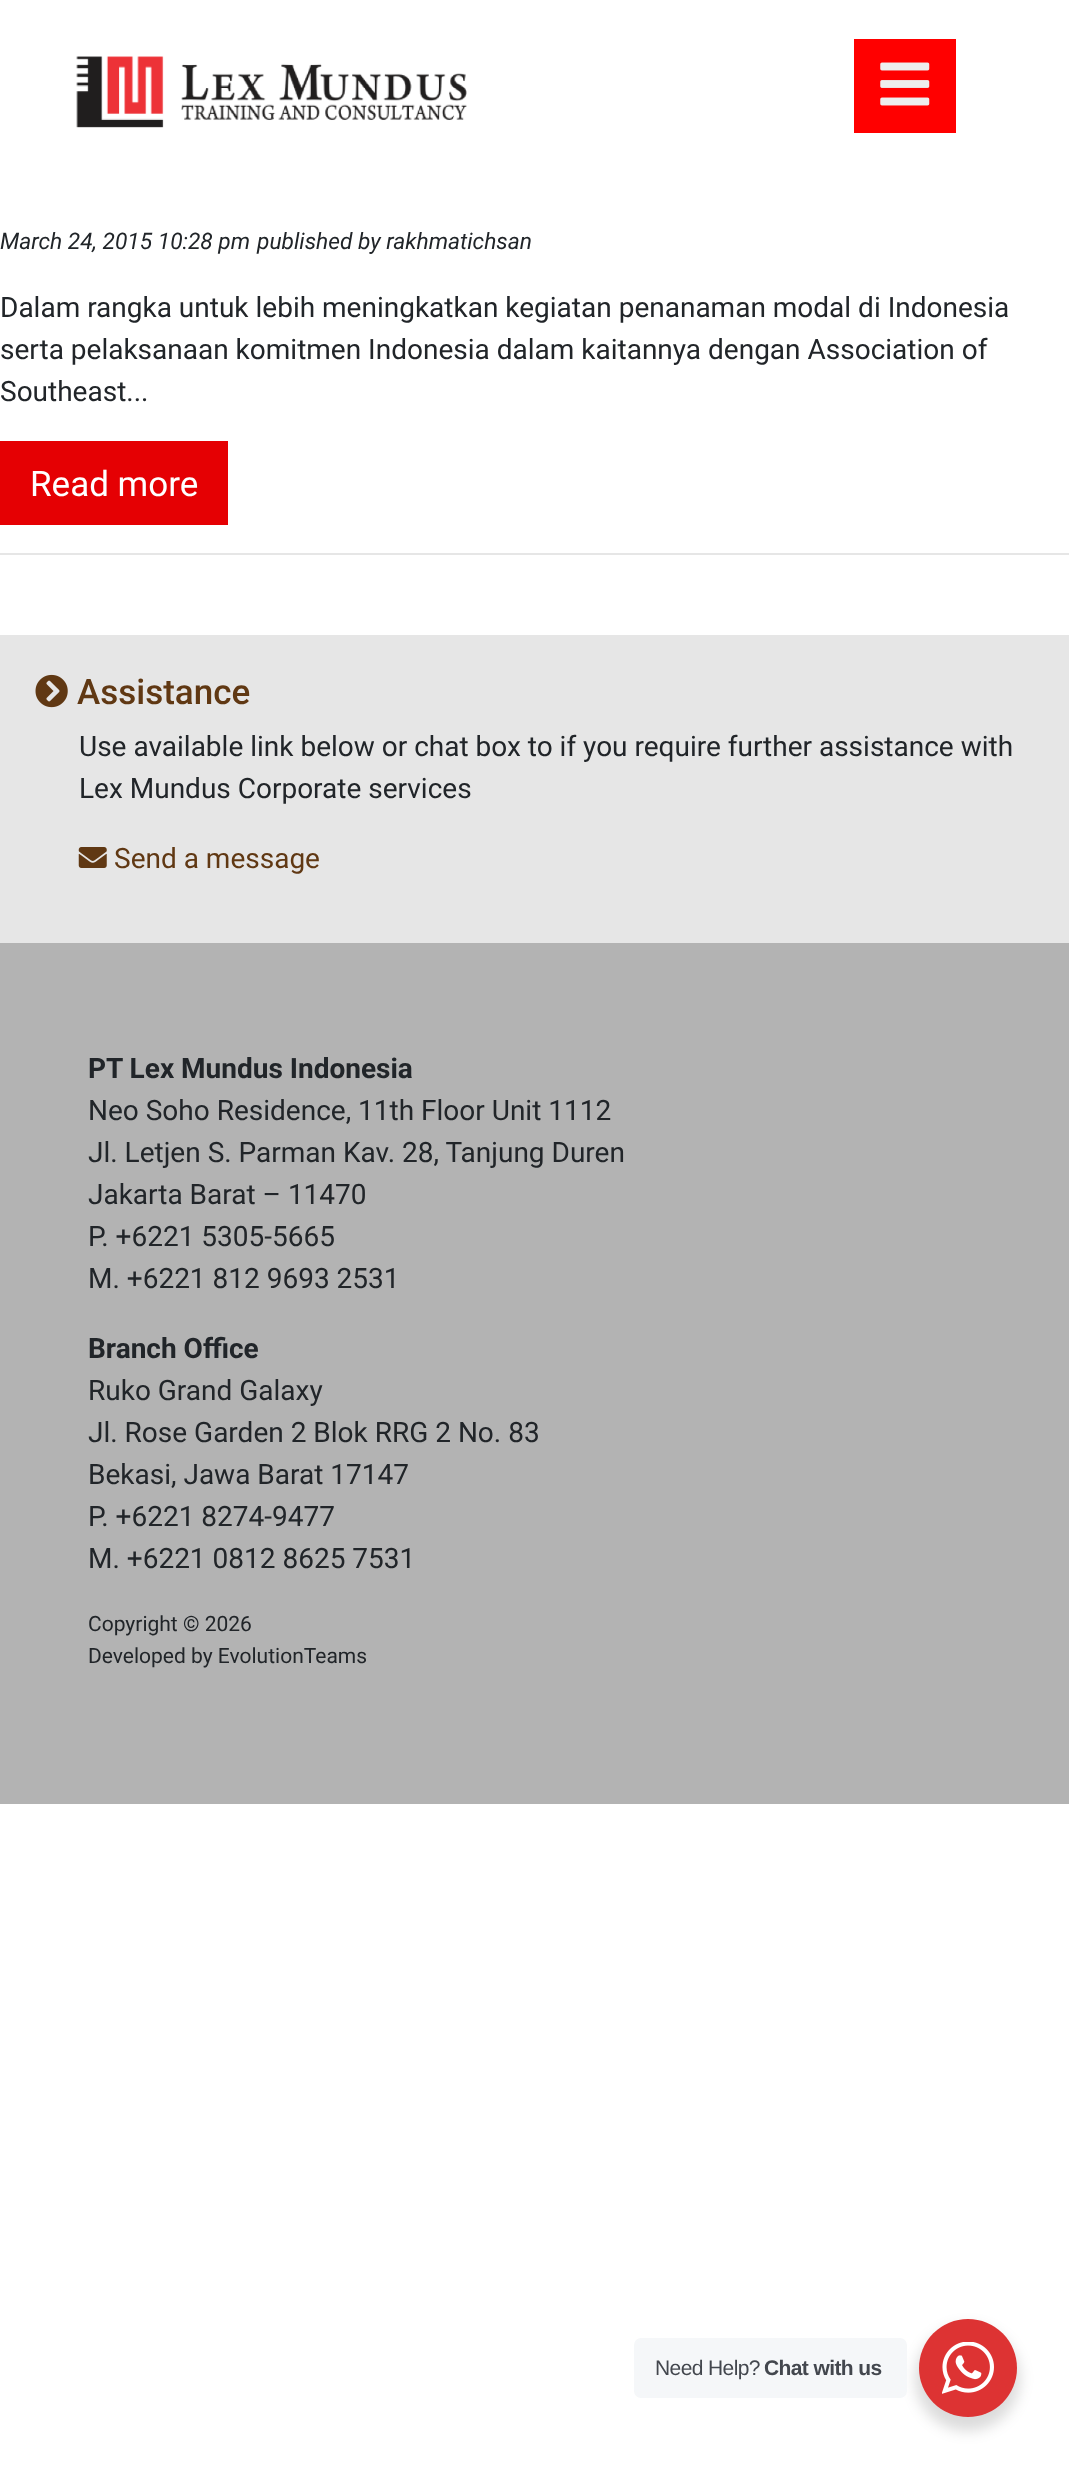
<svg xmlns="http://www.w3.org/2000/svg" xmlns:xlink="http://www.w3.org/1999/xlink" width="1069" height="2469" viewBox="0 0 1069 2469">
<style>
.cls-1{font:italic 22.75px Roboto;fill:#212529}
.cls-2{font:28px Roboto;fill:#212529}
.cls-3{font:35px Roboto;fill:#ffffff}
.cls-4{font:500 35px Roboto;fill:#603813}
.cls-5{font:28px Roboto;fill:#603813}
.cls-6{font:bold 28px Roboto;fill:#212529}
.cls-7{font:21px Roboto;fill:#212529}
.cls-8{font:21px Liberation Sans;letter-spacing:-0.6px;fill:#43474e}
.cls-9{font:bold 21px Liberation Sans;letter-spacing:-0.6px;fill:#43474e}
</style>
<rect width="100%" height="100%" fill="#ffffff"/>
<image xlink:href="image0.png" x="76" y="56" width="391" height="72"/>
<rect fill="#ff0000" x="854" y="39" width="102" height="94"/>
<image xlink:href="image1.png" x="880" y="62" width="50" height="44"/>
<rect fill="#e50003" x="0" y="441" width="228" height="84"/>
<rect fill="#e6e6e6" x="0" y="553" width="1069" height="2"/>
<rect fill="#e6e6e6" x="0" y="635" width="1069" height="308"/>
<image xlink:href="image2.png" x="35" y="674" width="33" height="34"/>
<image xlink:href="image3.png" x="78" y="847" width="29" height="21"/>
<rect fill="#b3b3b3" x="0" y="943" width="1069" height="861"/>
<rect fill="#000000" fill-opacity="0.14" filter="blur(7px)" x="915" y="2326" width="105" height="105" rx="52.5"/>
<rect fill="#f5f7f9" x="634" y="2338" width="273" height="60" rx="7"/>
<circle fill="#dd3333" cx="968" cy="2368" r="49"/>
<image xlink:href="image4.png" x="942" y="2342" width="52" height="52"/>
<text class="cls-1" x="0" y="249">March 24, 2015 10:28 pm</text>
<text class="cls-1" x="257" y="249">published by rakhmatichsan</text>
<text class="cls-2"><tspan x="0" y="317">Dalam rangka untuk lebih meningkatkan kegiatan penanaman modal di Indonesia</tspan><tspan x="0" y="359">serta pelaksanaan komitmen Indonesia dalam kaitannya dengan Association of</tspan><tspan x="0" y="401">Southeast...</tspan></text>
<text class="cls-3" x="30" y="496">Read more</text>
<text class="cls-4" x="77" y="704">Assistance</text>
<text class="cls-2"><tspan x="79" y="756">Use available link below or chat box to if you require further assistance with</tspan><tspan x="79" y="798">Lex Mundus Corporate services</tspan></text>
<text class="cls-5" x="114" y="868">Send a message</text>
<text class="cls-6" x="88" y="1078">PT Lex Mundus Indonesia</text>
<text class="cls-2"><tspan x="88" y="1120">Neo Soho Residence, 11th Floor Unit 1112</tspan><tspan x="88" y="1162">Jl. Letjen S. Parman Kav. 28, Tanjung Duren</tspan><tspan x="88" y="1204">Jakarta Barat – 11470</tspan><tspan x="88" y="1246">P. +6221 5305-5665</tspan><tspan x="88" y="1288">M. +6221 812 9693 2531</tspan></text>
<text class="cls-6" x="88" y="1358">Branch Office</text>
<text class="cls-2"><tspan x="88" y="1400">Ruko Grand Galaxy</tspan><tspan x="88" y="1442">Jl. Rose Garden 2 Blok RRG 2 No. 83</tspan><tspan x="88" y="1484">Bekasi, Jawa Barat 17147</tspan><tspan x="88" y="1526">P. +6221 8274-9477</tspan><tspan x="88" y="1568">M. +6221 0812 8625 7531</tspan></text>
<text class="cls-7"><tspan x="88" y="1631">Copyright © 2026</tspan><tspan x="88" y="1663">Developed by EvolutionTeams</tspan></text>
<text class="cls-8" x="655" y="2375">Need Help?</text>
<text class="cls-9" x="764" y="2375">Chat with us</text>
</svg>
